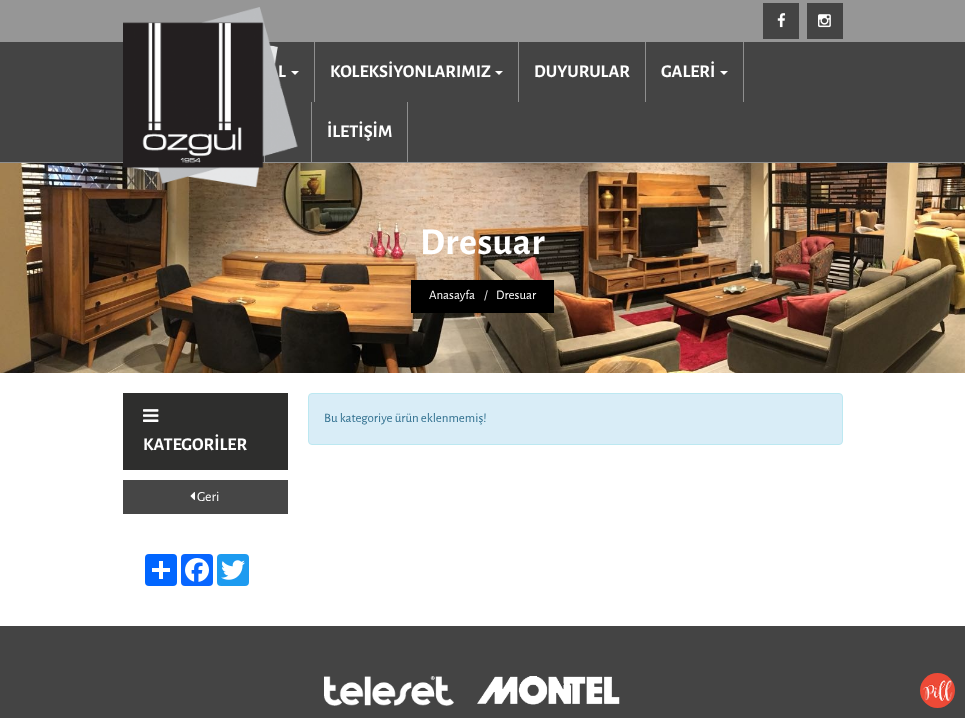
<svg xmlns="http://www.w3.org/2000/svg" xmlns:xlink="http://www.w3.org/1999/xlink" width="965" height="718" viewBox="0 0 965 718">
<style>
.cls-1{font:bold 18px Alegreya Sans;fill:#ffffff}
.cls-2{font:bold 38px Alegreya Sans;letter-spacing:0.5px;fill:#ffffff}
.cls-3{font:13px Alegreya Sans;fill:#ffffff}
.cls-4{font:13px Alegreya Sans;fill:#eaeaea}
.cls-5{font:13px Alegreya Sans;fill:#31708f}
.cls-6{font:14px Alegreya Sans;fill:#ffffff}
</style>
<rect width="100%" height="100%" fill="#ffffff"/>
<rect fill="#969696" x="0" y="0" width="965" height="42"/>
<rect fill="#444444" x="763" y="3" width="36" height="36"/>
<image xlink:href="image0.png" x="777" y="13" width="9" height="15"/>
<rect fill="#444444" x="807" y="3" width="36" height="36"/>
<image xlink:href="image1.png" x="818" y="14" width="13" height="14"/>
<rect fill="#444444" x="0" y="42" width="965" height="120"/>
<rect fill="#8f8f8f" x="0" y="162" width="965" height="1"/>
<rect fill="#8f8f8f" x="314" y="42" width="1" height="60"/>
<path fill="#ffffff" d="M291 71H299L295 75Z"/>
<rect fill="#8f8f8f" x="518" y="42" width="1" height="60"/>
<path fill="#ffffff" d="M495 71H503L499 75Z"/>
<rect fill="#8f8f8f" x="645" y="42" width="1" height="60"/>
<rect fill="#8f8f8f" x="743" y="42" width="1" height="60"/>
<path fill="#ffffff" d="M720 71H728L724 75Z"/>
<rect fill="#8f8f8f" x="311" y="102" width="1" height="60"/>
<rect fill="#8f8f8f" x="407" y="102" width="1" height="60"/>
<rect fill="#8f8f8f" x="264" y="155" width="1" height="7"/>
<image xlink:href="image3.png" x="0" y="163" width="965" height="210"/>
<rect fill="#000000" x="411" y="280" width="143" height="33"/>
<rect fill="#d9edf7" stroke="#bce8f1" x="308.5" y="393.5" width="534" height="51" rx="3.5"/>
<rect fill="#2e2e2d" x="123" y="393" width="165" height="77"/>
<image xlink:href="image4.png" x="143" y="409" width="16" height="13"/>
<rect fill="#464646" x="123" y="480" width="165" height="34"/>
<image xlink:href="image5.png" x="190" y="492" width="5" height="8"/>
<rect fill="#0166ff" x="145" y="554" width="32" height="32" rx="4"/>
<rect fill="#ffffff" x="159" y="561" width="4" height="18"/>
<rect fill="#ffffff" x="152" y="568" width="18" height="4"/>
<rect fill="#0866ff" x="181" y="554" width="32" height="32" rx="4"/>
<image xlink:href="image6.png" x="185" y="558" width="24" height="24"/>
<rect fill="#1d9bf0" x="217" y="554" width="32" height="32" rx="4"/>
<image xlink:href="image7.png" x="221" y="560" width="24" height="20"/>
<rect fill="#444444" x="0" y="626" width="965" height="92"/>
<image xlink:href="image8.png" x="324" y="676" width="130" height="30"/>
<image xlink:href="image9.png" x="477" y="676" width="143" height="29"/>
<image xlink:href="image10.png" x="920" y="673" width="35" height="35"/>
<text class="cls-1" x="278" y="77">L</text>
<image xlink:href="image2.png" x="123" y="7" width="175" height="180"/>
<text class="cls-1" x="330" y="77">KOLEKSİYONLARIMIZ</text>
<text class="cls-1" x="534" y="77">DUYURULAR</text>
<text class="cls-1" x="661" y="77">GALERİ</text>
<text class="cls-1" x="327" y="137">İLETİŞİM</text>
<text class="cls-2" x="420" y="254">Dresuar</text>
<text class="cls-3" x="429" y="299">Anasayfa</text>
<text class="cls-4" x="484" y="299">/</text>
<text class="cls-3" x="496" y="299">Dresuar</text>
<text class="cls-5" x="324" y="422">Bu kategoriye ürün eklenmemiş!</text>
<text class="cls-1" x="143" y="450">KATEGORİLER</text>
<text class="cls-6" x="197" y="501">Geri</text>
</svg>
